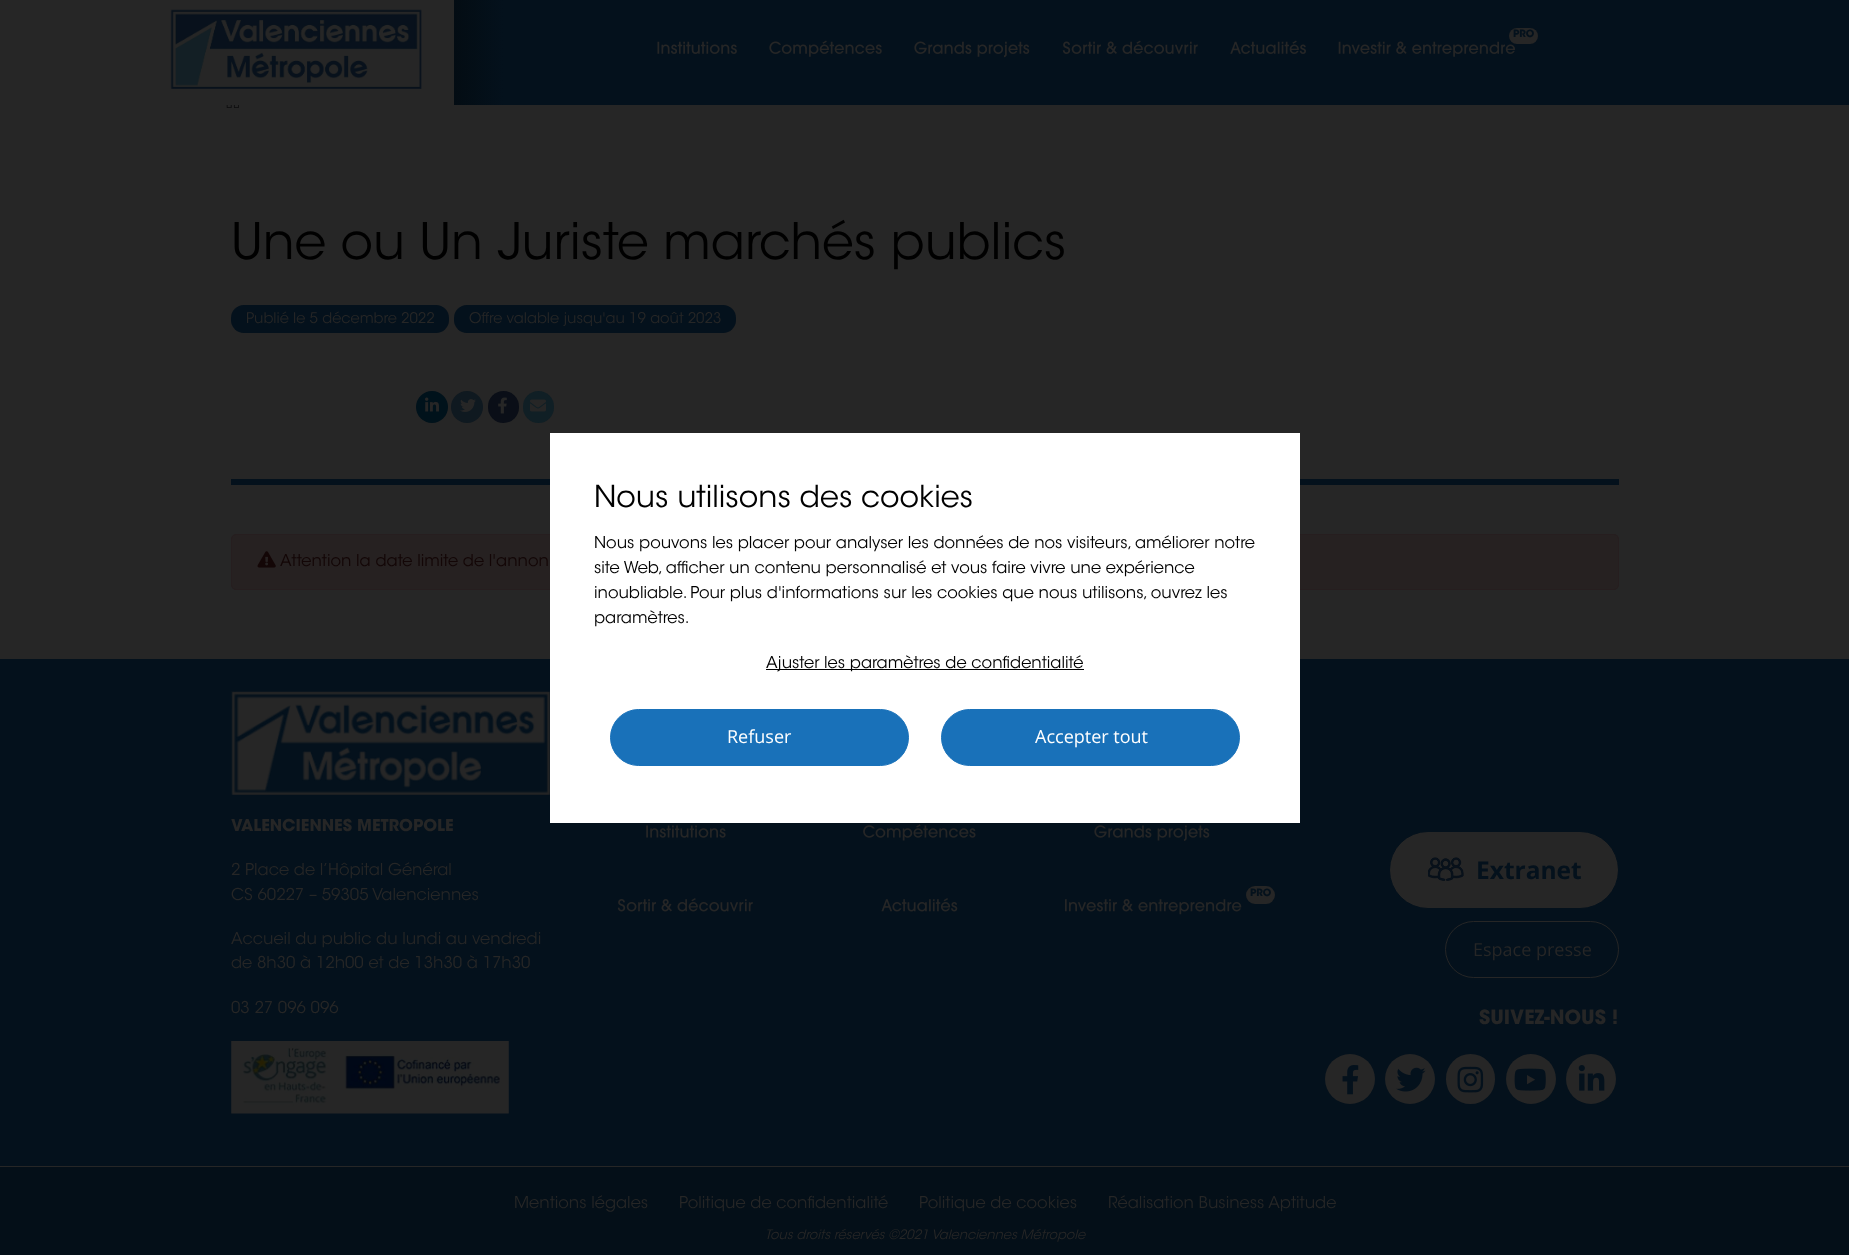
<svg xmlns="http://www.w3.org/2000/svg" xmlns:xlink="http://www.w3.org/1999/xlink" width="1849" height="1255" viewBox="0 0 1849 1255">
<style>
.cls-1{font:bold 10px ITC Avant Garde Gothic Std;fill:#04111c}
.cls-2{font:300 50px ITC Avant Garde Gothic Std;fill:#000000}
.cls-3{font:300 14.6px ITC Avant Garde Gothic Std;fill:#262626}
.cls-4{font:300 16.25px ITC Avant Garde Gothic Std;fill:#130606}
.cls-5{font:bold 16.25px ITC Avant Garde Gothic Std;fill:#262626}
.cls-6{font:300 16.25px ITC Avant Garde Gothic Std;fill:#262626}
.cls-7{font:bold 24.5px Open Sans;fill:#04111c}
.cls-8{font:18px Open Sans;fill:#262626}
.cls-9{font:bold 19.5px ITC Avant Garde Gothic Std;fill:#262626}
.cls-10{font:italic 300 13px ITC Avant Garde Gothic Std;fill:#262626}
.cls-11{font:300 30px ITC Avant Garde Gothic Std;fill:#000000}
.cls-12{font:300 16.25px ITC Avant Garde Gothic Std;fill:#000000}
.cls-13{font:18px Open Sans;fill:#ffffff}
</style>
<defs>
<linearGradient id="g1" gradientUnits="userSpaceOnUse" x1="454" y1="49" x2="503" y2="49"><stop offset="0" stop-color="#030c13"/><stop offset="1" stop-color="#04111c"/></linearGradient>
</defs>
<rect width="100%" height="100%" fill="#262626"/>
<image xlink:href="image0.png" x="170" y="9" width="252" height="80"/>
<rect fill="#04111c" x="503" y="0" width="1346" height="105"/>
<rect fill="url(#g1)" x="454" y="0" width="49" height="105"/>
<rect fill="#262626" x="1509" y="28" width="29" height="16" rx="8"/>
<image xlink:href="image1.png" x="1338" y="41" width="177" height="16"/>
<image xlink:href="image2.png" x="657" y="41" width="80" height="13"/>
<image xlink:href="image3.png" x="769" y="40" width="113" height="17"/>
<image xlink:href="image4.png" x="914" y="41" width="116" height="17"/>
<image xlink:href="image5.png" x="1062" y="40" width="136" height="14"/>
<image xlink:href="image6.png" x="1230" y="40" width="76" height="14"/>
<image xlink:href="image7.png" x="226" y="105" width="13" height="3"/>
<rect fill="#04111c" x="231" y="479" width="1388" height="6"/>
<rect fill="#04111c" x="231" y="305" width="218" height="28" rx="13"/>
<rect fill="#04111c" x="454" y="305" width="282" height="28" rx="13"/>
<circle fill="#00121b" cx="432" cy="407" r="16"/>
<image xlink:href="image8.png" x="425" y="397" width="14" height="15"/>
<circle fill="#0f1920" cx="467" cy="407" r="16"/>
<image xlink:href="image9.png" x="460" y="399" width="16" height="13"/>
<rect fill="#0a0e17" x="488" y="391" width="31" height="32" rx="15.5"/>
<image xlink:href="image10.png" x="498" y="397" width="9" height="17"/>
<rect fill="#101f25" x="523" y="391" width="31" height="32" rx="15.5"/>
<image xlink:href="image11.png" x="530" y="399" width="16" height="13"/>
<rect fill="#262121" stroke="#261e1f" x="231.5" y="534.5" width="1387" height="55" rx="4.5"/>
<image xlink:href="image12.png" x="257" y="551" width="19" height="17"/>
<rect fill="#04111c" x="0" y="659" width="1849" height="507"/>
<image xlink:href="image13.png" x="231" y="691" width="319" height="104"/>
<image xlink:href="image14.png" x="231" y="1041" width="278" height="73"/>
<image xlink:href="image15.png" x="646" y="825" width="80" height="13"/>
<image xlink:href="image16.png" x="863" y="824" width="113" height="17"/>
<image xlink:href="image17.png" x="1094" y="825" width="116" height="16"/>
<rect fill="#262626" x="1246" y="886" width="29" height="18" rx="9"/>
<image xlink:href="image18.png" x="1064" y="899" width="178" height="16"/>
<image xlink:href="image19.png" x="617" y="898" width="136" height="14"/>
<image xlink:href="image20.png" x="881" y="898" width="77" height="14"/>
<rect fill="#262626" stroke="#04111c" x="1389.5" y="831.5" width="229" height="77" rx="38.5"/>
<image xlink:href="image21.png" x="1428" y="857" width="36" height="24"/>
<rect fill="none" stroke="#262626" x="1445.5" y="921.5" width="173" height="56" rx="28"/>
<circle fill="#262626" cx="1350" cy="1079" r="25"/>
<image xlink:href="image22.png" x="1342" y="1065" width="17" height="30"/>
<circle fill="#262626" cx="1410" cy="1079" r="25"/>
<image xlink:href="image23.png" x="1396" y="1067" width="30" height="25"/>
<rect fill="#262626" x="1446" y="1054" width="49" height="50" rx="24.5"/>
<image xlink:href="image24.png" x="1457" y="1066" width="27" height="27"/>
<circle fill="#262626" cx="1531" cy="1079" r="25"/>
<image xlink:href="image25.png" x="1514" y="1068" width="32" height="23"/>
<circle fill="#262626" cx="1591" cy="1079" r="25"/>
<image xlink:href="image26.png" x="1578" y="1065" width="27" height="26"/>
<rect fill="#040f18" x="0" y="1167" width="1849" height="88"/>
<rect fill="#ffffff" x="550" y="433" width="750" height="390"/>
<rect fill="#000000" x="766" y="669" width="318" height="1"/>
<rect fill="#1971b9" stroke="#1971b9" x="610.5" y="709.5" width="298" height="56" rx="28"/>
<rect fill="#1971b9" stroke="#1971b9" x="941.5" y="709.5" width="298" height="56" rx="28"/>
<text class="cls-1" x="1513" y="37">PRO</text>
<text class="cls-2" x="231" y="259">Une ou Un Juriste marchés publics</text>
<text class="cls-3" x="246" y="323">Publié le 5 décembre 2022</text>
<text class="cls-3" x="469" y="323">Offre valable jusqu'au 19 août 2023</text>
<text class="cls-4" x="280" y="566">Attention la date limite de l'annon</text>
<text class="cls-5" x="231" y="831">VALENCIENNES METROPOLE</text>
<text class="cls-6"><tspan x="231" y="875">2 Place de l’Hôpital Général</tspan><tspan x="231" y="900">CS 60227 – 59305 Valenciennes</tspan></text>
<text class="cls-6"><tspan x="231" y="944">Accueil du public du lundi au vendredi</tspan><tspan x="231" y="968">de 8h30 à 12h00 et de 13h30 à 17h30</tspan></text>
<text class="cls-6" x="231" y="1013">03 27 096 096</text>
<text class="cls-1" x="1250" y="896">PRO</text>
<text class="cls-7" x="1476" y="879">Extranet</text>
<text class="cls-8" x="1473" y="956">Espace presse</text>
<text class="cls-9" x="1479" y="1024">SUIVEZ-NOUS !</text>
<text class="cls-6" x="514" y="1208">Mentions légales</text>
<text class="cls-6" x="679" y="1208">Politique de confidentialité</text>
<text class="cls-6" x="919" y="1208">Politique de cookies</text>
<text class="cls-6" x="1108" y="1208">Réalisation Business Aptitude</text>
<text class="cls-10" x="765" y="1239">Tous droits réservés ©2021 Valenciennes Métropole</text>
<text class="cls-11" x="594" y="507">Nous utilisons des cookies</text>
<text class="cls-12"><tspan x="594" y="548">Nous pouvons les placer pour analyser les données de nos visiteurs, améliorer notre</tspan><tspan x="594" y="573">site Web, afficher un contenu personnalisé et vous faire vivre une expérience</tspan><tspan x="594" y="598">inoubliable. Pour plus d'informations sur les cookies que nous utilisons, ouvrez les</tspan><tspan x="594" y="623">paramètres.</tspan></text>
<text class="cls-12" x="766" y="668">Ajuster les paramètres de confidentialité</text>
<text class="cls-13" x="727" y="743">Refuser</text>
<text class="cls-13" x="1035" y="743">Accepter tout</text>
</svg>
